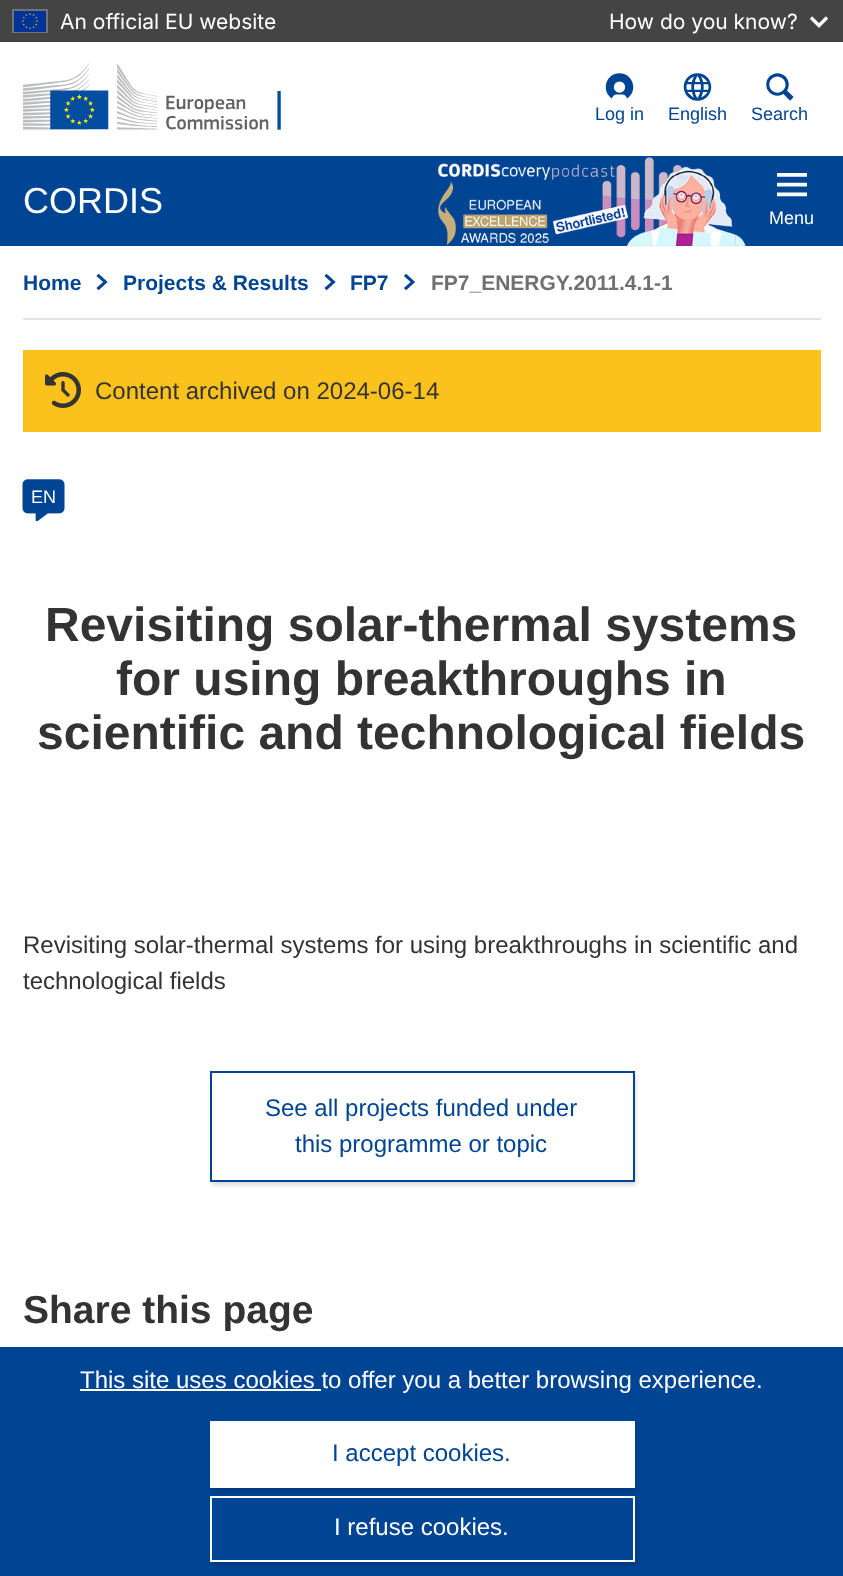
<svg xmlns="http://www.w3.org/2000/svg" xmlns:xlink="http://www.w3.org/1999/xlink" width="843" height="1576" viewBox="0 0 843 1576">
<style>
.cls-1{font:21px Inter;fill:#ffffff}
.cls-2{font:18px Liberation Sans;fill:#004494}
.cls-3{font:36px Liberation Sans;fill:#ffffff}
.cls-4{font:18px Liberation Sans;fill:#ffffff}
.cls-5{font:bold 21px Liberation Sans;fill:#004494}
.cls-6{font:bold 21px Liberation Sans;fill:#707070}
.cls-7{font:24px Liberation Sans;fill:#333333}
.cls-8{font:bold 48px Liberation Sans;fill:#333333}
.cls-9{font:24px Liberation Sans;fill:#004494}
.cls-10{font:bold 39px Liberation Sans;fill:#333333}
.cls-11{font:24px Liberation Sans;fill:#ffffff}
</style>
<defs>
<clipPath id="clip1"><rect x="123" y="270" width="186" height="24"/></clipPath>
</defs>
<rect width="100%" height="100%" fill="#ffffff"/>
<rect fill="#444444" x="0" y="0" width="843" height="42"/>
<rect fill="none" stroke="#737373" stroke-width="2" x="13" y="10" width="34" height="22"/>
<image xlink:href="image0.png" x="14" y="11" width="32" height="21"/>
<image xlink:href="image1.png" x="810" y="16" width="18" height="12"/>
<image xlink:href="image2.png" x="23" y="63" width="258" height="67"/>
<image xlink:href="image3.png" x="605" y="73" width="29" height="26"/>
<image xlink:href="image4.png" x="683" y="73" width="29" height="28"/>
<image xlink:href="image5.png" x="766" y="73" width="28" height="28"/>
<rect fill="#004494" x="0" y="156" width="843" height="90"/>
<image xlink:href="image6.png" x="438" y="157" width="308" height="89"/>
<image xlink:href="image7.png" x="777" y="173" width="30" height="24"/>
<rect fill="#e3e3e3" x="23" y="318" width="798" height="2"/>
<image xlink:href="image8.png" x="96" y="273" width="12" height="18"/>
<image xlink:href="image8.png" x="324" y="273" width="12" height="18"/>
<image xlink:href="image9.png" x="404" y="273" width="11" height="18"/>
<rect fill="#fbc11d" x="23" y="350" width="798" height="82"/>
<image xlink:href="image10.png" x="45" y="372" width="36" height="36"/>
<image xlink:href="image11.png" x="22" y="479" width="43" height="43"/>
<rect fill="#000000" fill-opacity="0.15" filter="blur(2px)" x="212" y="1074" width="424" height="111"/>
<rect fill="#ffffff" stroke="#004494" stroke-width="2" x="211" y="1072" width="423" height="109"/>
<rect fill="#004494" x="0" y="1347" width="843" height="229"/>
<rect fill="#ffffff" x="80" y="1389" width="241" height="2"/>
<rect fill="#000000" fill-opacity="0.15" filter="blur(2px)" x="212" y="1424" width="424" height="67"/>
<rect fill="#ffffff" x="210" y="1421" width="425" height="67"/>
<rect fill="#000000" fill-opacity="0.15" filter="blur(2px)" x="212" y="1499" width="424" height="66"/>
<rect fill="#004494" stroke="#ffffff" stroke-width="2" x="211" y="1497" width="423" height="64"/>
<text class="cls-1" x="60" y="29">An official EU website</text>
<text class="cls-1" x="609" y="29">How do you know?</text>
<text class="cls-2" x="595" y="120">Log in</text>
<text class="cls-2" x="668" y="120">English</text>
<text class="cls-2" x="751" y="120">Search</text>
<text class="cls-3" x="23" y="213">CORDIS</text>
<text class="cls-4" x="769" y="224">Menu</text>
<text class="cls-5" x="23" y="290">Home</text>
<g clip-path="url(#clip1)">
<text class="cls-5" x="123" y="290">Projects &amp; Results</text>
</g>
<text class="cls-5" x="350" y="290">FP7</text>
<text class="cls-6" x="431" y="290">FP7_ENERGY.2011.4.1-1</text>
<text class="cls-7" x="95" y="399">Content archived on 2024-06-14</text>
<text class="cls-4" x="31" y="503">EN</text>
<text class="cls-8" x="45" y="641">Revisiting solar-thermal systems</text>
<text class="cls-8" x="116" y="695">for using breakthroughs in</text>
<text class="cls-8" x="37" y="749">scientific and technological fields</text>
<text class="cls-7"><tspan x="23" y="953">Revisiting solar-thermal systems for using breakthroughs in scientific and</tspan><tspan x="23" y="989">technological fields</tspan></text>
<text class="cls-9" x="265" y="1116">See all projects funded under</text>
<text class="cls-9" x="295" y="1152">this programme or topic</text>
<text class="cls-10" x="23" y="1323">Share this page</text>
<text class="cls-11" x="80" y="1388">This site uses cookies to offer you a better browsing experience.</text>
<text class="cls-9" x="332" y="1461">I accept cookies.</text>
<text class="cls-11" x="334" y="1535">I refuse cookies.</text>
</svg>
